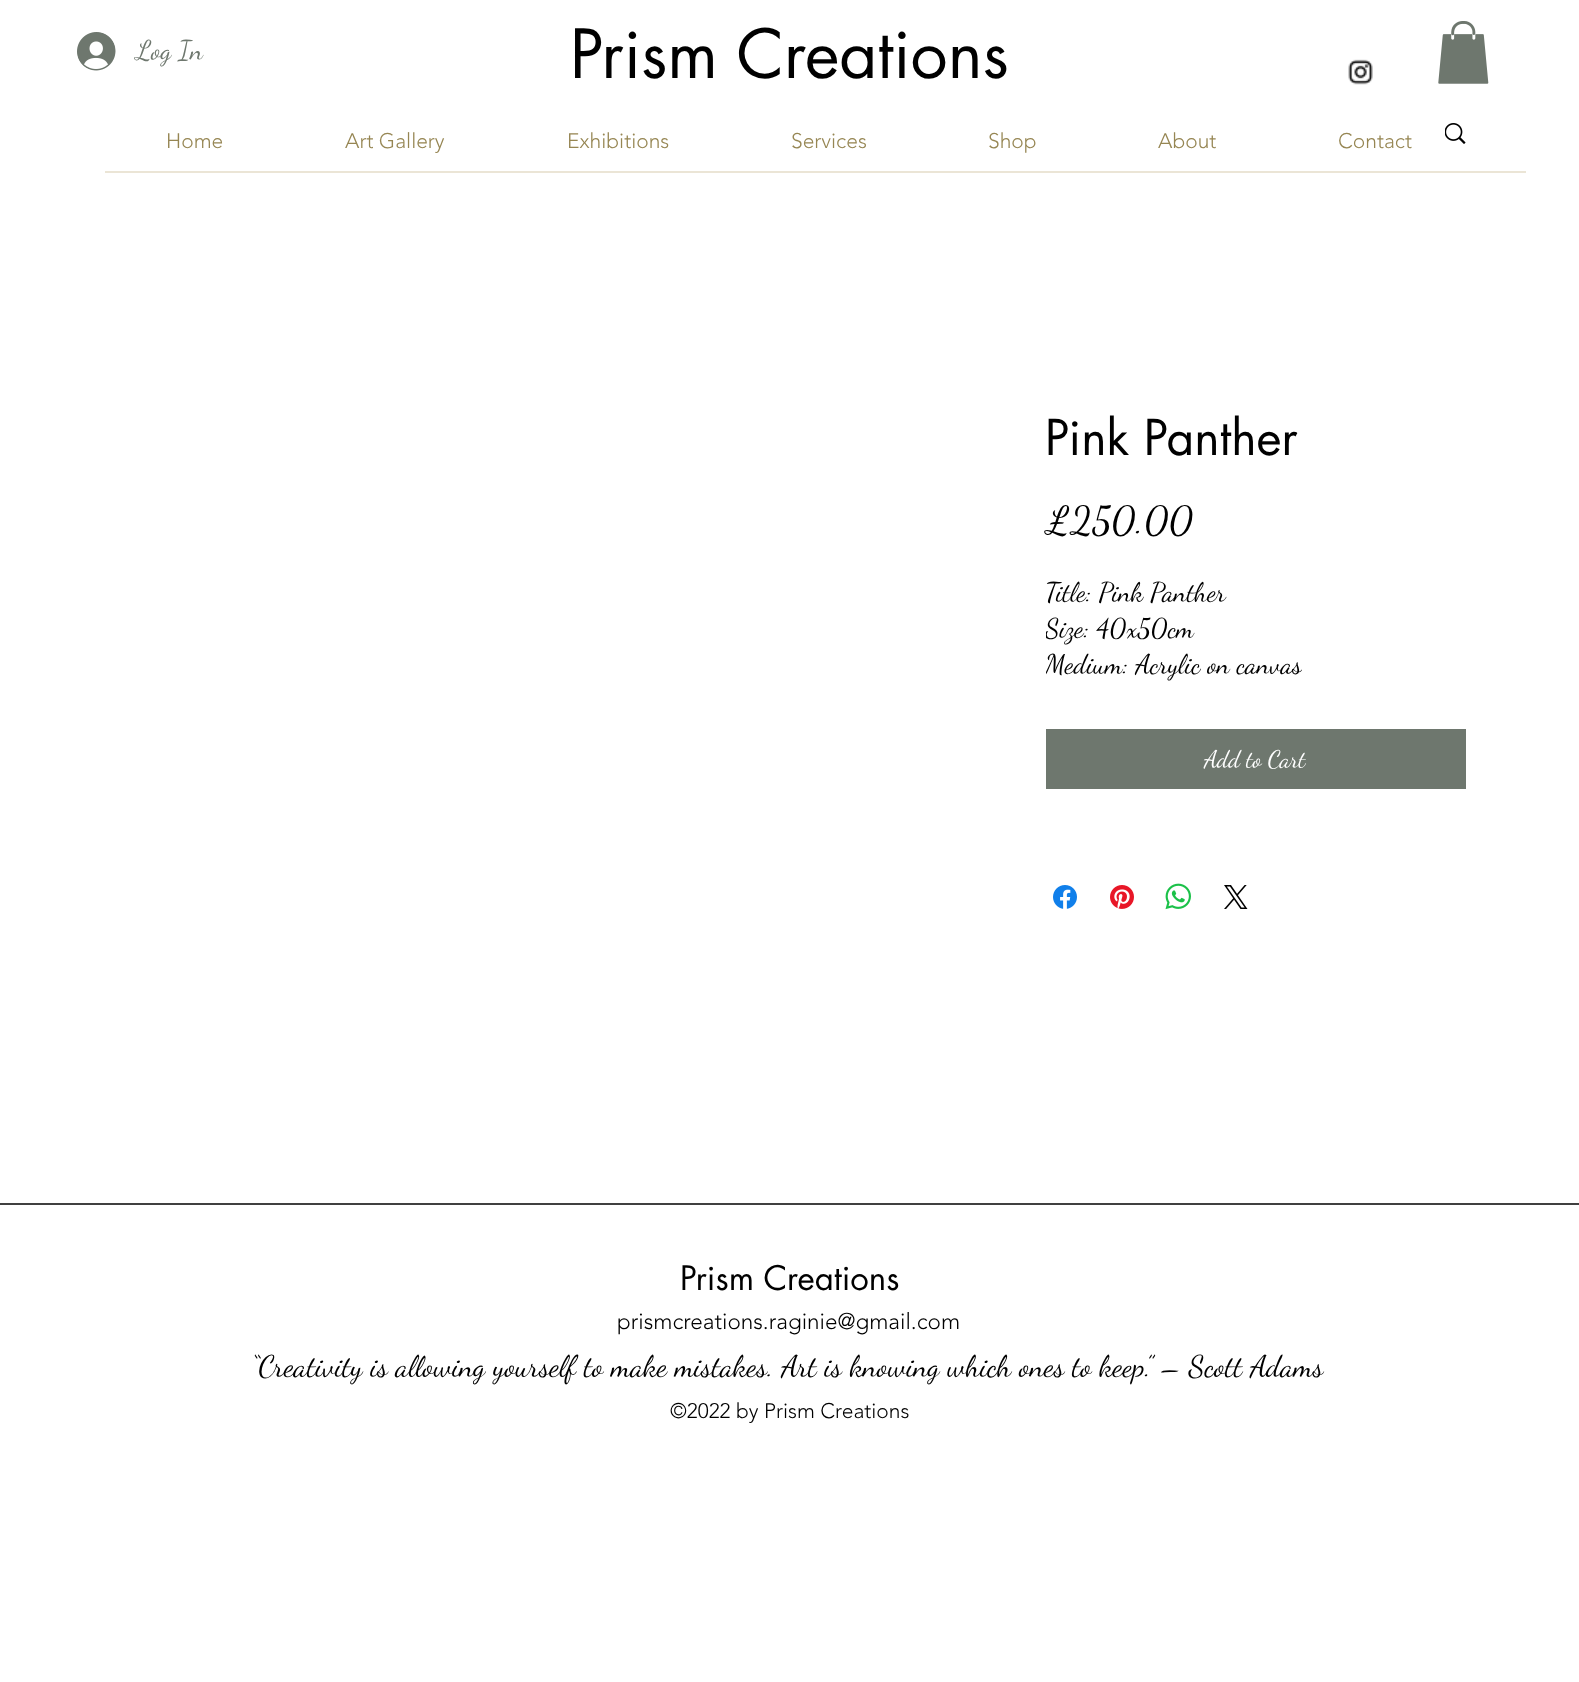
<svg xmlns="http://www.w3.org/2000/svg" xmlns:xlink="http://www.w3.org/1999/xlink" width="1579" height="1682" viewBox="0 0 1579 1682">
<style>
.cls-1{font:27px Dancing Script;fill:#6e776e}
.cls-2{font:66px futura;fill:#000000}
.cls-3{font:300 21px 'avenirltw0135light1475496';fill:#968653}
.cls-4{font:48px futura;fill:#000000}
.cls-5{font:39px Dancing Script;fill:#000000}
.cls-6{font:27px Dancing Script;fill:#000000}
.cls-7{font:24px Dancing Script;fill:#ffffff}
.cls-8{font:33px futura;fill:#000000}
.cls-9{font:300 22.5px 'avenirltw0135light1475496';fill:#000000}
.cls-10{font:30px Dancing Script;fill:#000000}
.cls-11{font:300 21px 'avenirltw0135light1475496';fill:#000000}
</style>
<defs>
<clipPath id="clip1"><rect x="1046" y="573" width="256" height="108"/></clipPath>
</defs>
<rect width="100%" height="100%" fill="#ffffff"/>
<image xlink:href="image0.png" x="77" y="32" width="39" height="39"/>
<image xlink:href="image1.png" x="1438" y="21" width="51" height="63"/>
<image xlink:href="image2.png" x="1348" y="59" width="25" height="26"/>
<rect fill="#ebe5d6" x="105" y="171" width="1421" height="2"/>
<image xlink:href="image3.png" x="1445" y="123" width="21" height="21"/>
<rect fill="#6e776e" x="1046" y="729" width="420" height="60"/>
<image xlink:href="image4.png" x="1053" y="885" width="24" height="24"/>
<image xlink:href="image5.png" x="1110" y="885" width="24" height="24"/>
<image xlink:href="image6.png" x="1165" y="883" width="26" height="27"/>
<image xlink:href="image7.png" x="1224" y="885" width="24" height="24"/>
<rect fill="#404040" x="0" y="1203" width="1579" height="2"/>
<text class="cls-1" x="136" y="59">Log In</text>
<text class="cls-2" x="570" y="78">Prism Creations</text>
<text class="cls-3" x="166" y="148">Home</text>
<text class="cls-3" x="345" y="148">Art Gallery</text>
<text class="cls-3" x="567" y="148">Exhibitions</text>
<text class="cls-3" x="791" y="148">Services</text>
<text class="cls-3" x="988" y="148">Shop</text>
<text class="cls-3" x="1158" y="148">About</text>
<text class="cls-3" x="1338" y="148">Contact</text>
<text class="cls-4" x="1045" y="455">Pink Panther</text>
<text class="cls-5" x="1045" y="533">£250.00</text>
<text class="cls-6" x="1045" y="601">Title: Pink Panther</text>
<g clip-path="url(#clip1)">
<text class="cls-6"><tspan x="1045" y="637">Size: 40x50cm</tspan><tspan x="1045" y="673">Medium: Acrylic on canvas</tspan></text>
</g>
<text class="cls-7" x="1204" y="767">Add to Cart</text>
<text class="cls-8" x="680" y="1290">Prism Creations</text>
<text class="cls-9" x="617" y="1329">prismcreations.raginie@gmail.com</text>
<text class="cls-10" x="251" y="1376">“Creativity is allowing yourself to make mistakes. Art is knowing which ones to keep.” – Scott Adams</text>
<text class="cls-11" x="670" y="1418">©2022 by Prism Creations</text>
</svg>
